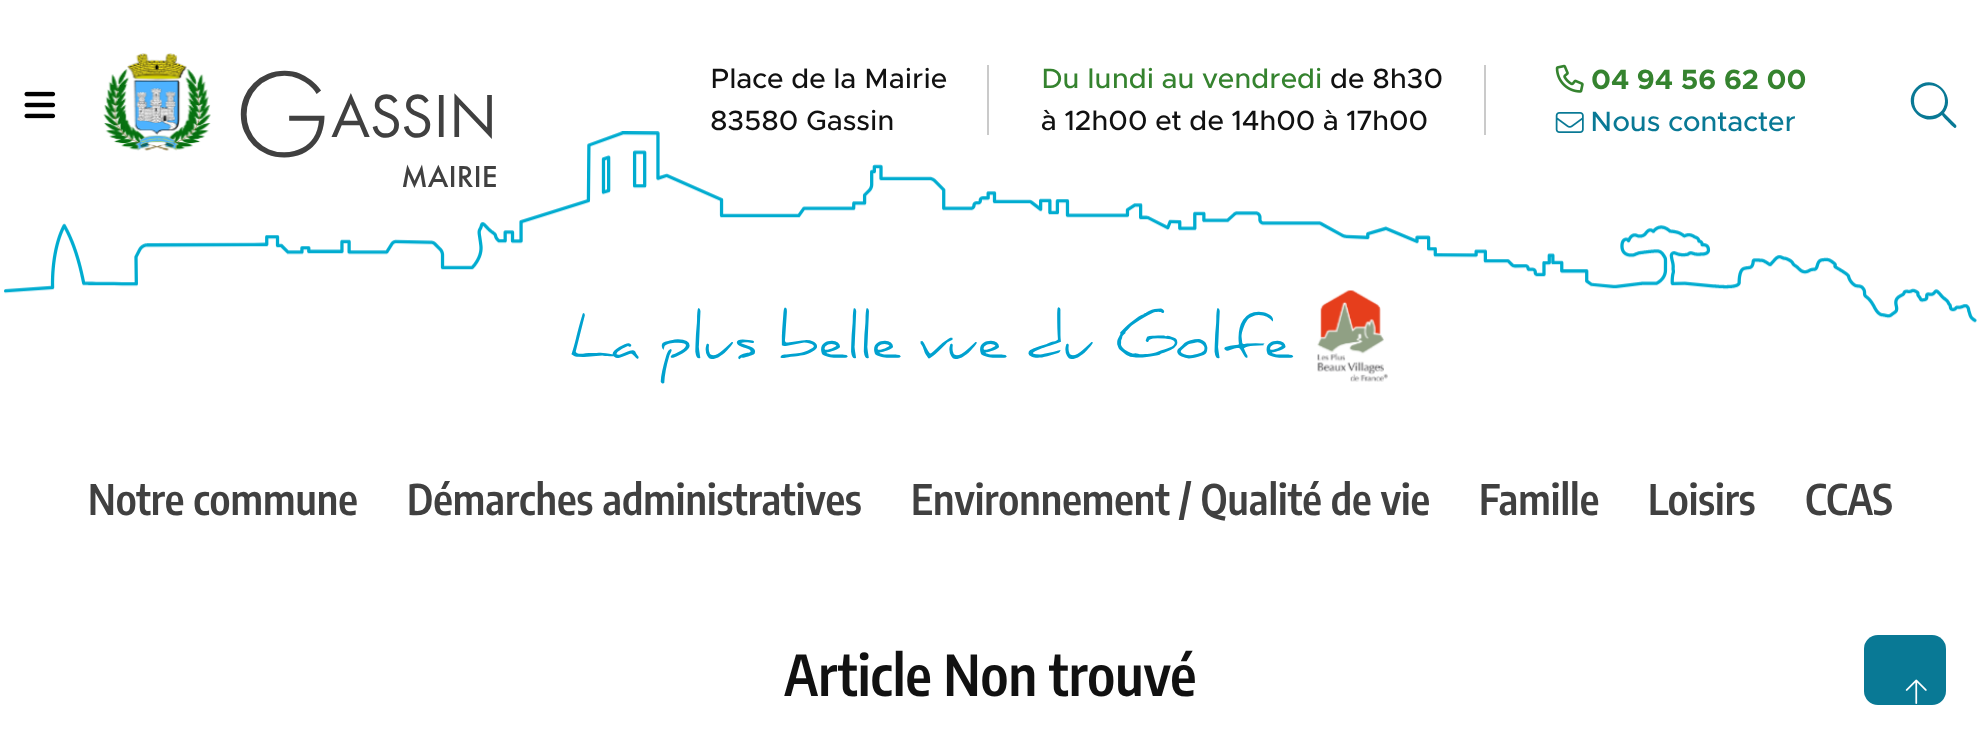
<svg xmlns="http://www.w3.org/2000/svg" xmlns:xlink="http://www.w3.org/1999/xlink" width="1981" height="740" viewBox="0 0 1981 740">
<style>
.cls-1{font:300 126px Futura PT;fill:#404040}
.cls-2{font:63px Futura PT;fill:#404040}
.cls-3{font:500 31.5px Futura PT;fill:#404040}
.cls-4{font:500 28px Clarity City;fill:#111111}
.cls-5{font:500 28px Clarity City;fill:#35832f}
.cls-6{font:bold 28px Clarity City;fill:#35832f}
.cls-7{font:500 28px Clarity City;fill:#097995}
.cls-8{font:56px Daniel;fill:#00a1cf}
.cls-9{font:600 42px Encode Sans Condensed;fill:#404040}
.cls-10{font:600 56px Encode Sans Condensed;fill:#111111}
</style>
<rect width="100%" height="100%" fill="#ffffff"/>
<image xlink:href="image0.png" x="24" y="91" width="32" height="28"/>
<image xlink:href="image4.png" x="4" y="131" width="1973" height="192"/>
<image xlink:href="image1.png" x="103" y="53" width="108" height="98"/>
<rect fill="#cacaca" x="987" y="65" width="2" height="70"/>
<rect fill="#cacaca" x="1484" y="65" width="2" height="70"/>
<image xlink:href="image2.png" x="1555" y="64" width="29" height="29"/>
<image xlink:href="image3.png" x="1555" y="112" width="29" height="21"/>
<path fill="#097995" d="M1945 101C1945 80 1914 80 1914 101C1914 121 1945 121 1945 101ZM1942 115C1924 130 1900 105 1916 88C1933 71 1958 96 1944 113L1956 125C1957 126 1956 128 1955 128C1954 128 1943 117 1942 115Z"/>
<image xlink:href="image5.png" x="1317" y="290" width="71" height="92"/>
<rect fill="#097995" x="1864" y="635" width="82" height="70" rx="14"/>
<image xlink:href="image6.png" x="1905" y="679" width="22" height="25"/>
<text class="cls-1" x="234" y="156">G</text>
<text class="cls-2" x="331" y="137">ASSIN</text>
<text class="cls-3" x="401" y="187">MAIRIE</text>
<text class="cls-4"><tspan x="710" y="88">Place de la Mairie</tspan><tspan x="710" y="130">83580 Gassin</tspan></text>
<text class="cls-5" x="1041" y="88">Du lundi au vendredi</text>
<text class="cls-4" x="1330" y="88">de 8h30</text>
<text class="cls-4" x="1041" y="130">à 12h00 et de 14h00 à 17h00</text>
<text class="cls-6" x="1591" y="89">04 94 56 62 00</text>
<text class="cls-7" x="1590" y="131">Nous contacter</text>
<text class="cls-8" x="570" y="358">La plus belle vue du Golfe</text>
<text class="cls-9" x="88" y="515">Notre commune</text>
<text class="cls-9" x="407" y="515">Démarches administratives</text>
<text class="cls-9" x="911" y="515">Environnement / Qualité de vie</text>
<text class="cls-9" x="1479" y="515">Famille</text>
<text class="cls-9" x="1648" y="515">Loisirs</text>
<text class="cls-9" x="1805" y="515">CCAS</text>
<text class="cls-10" x="784" y="696">Article Non trouvé</text>
</svg>
